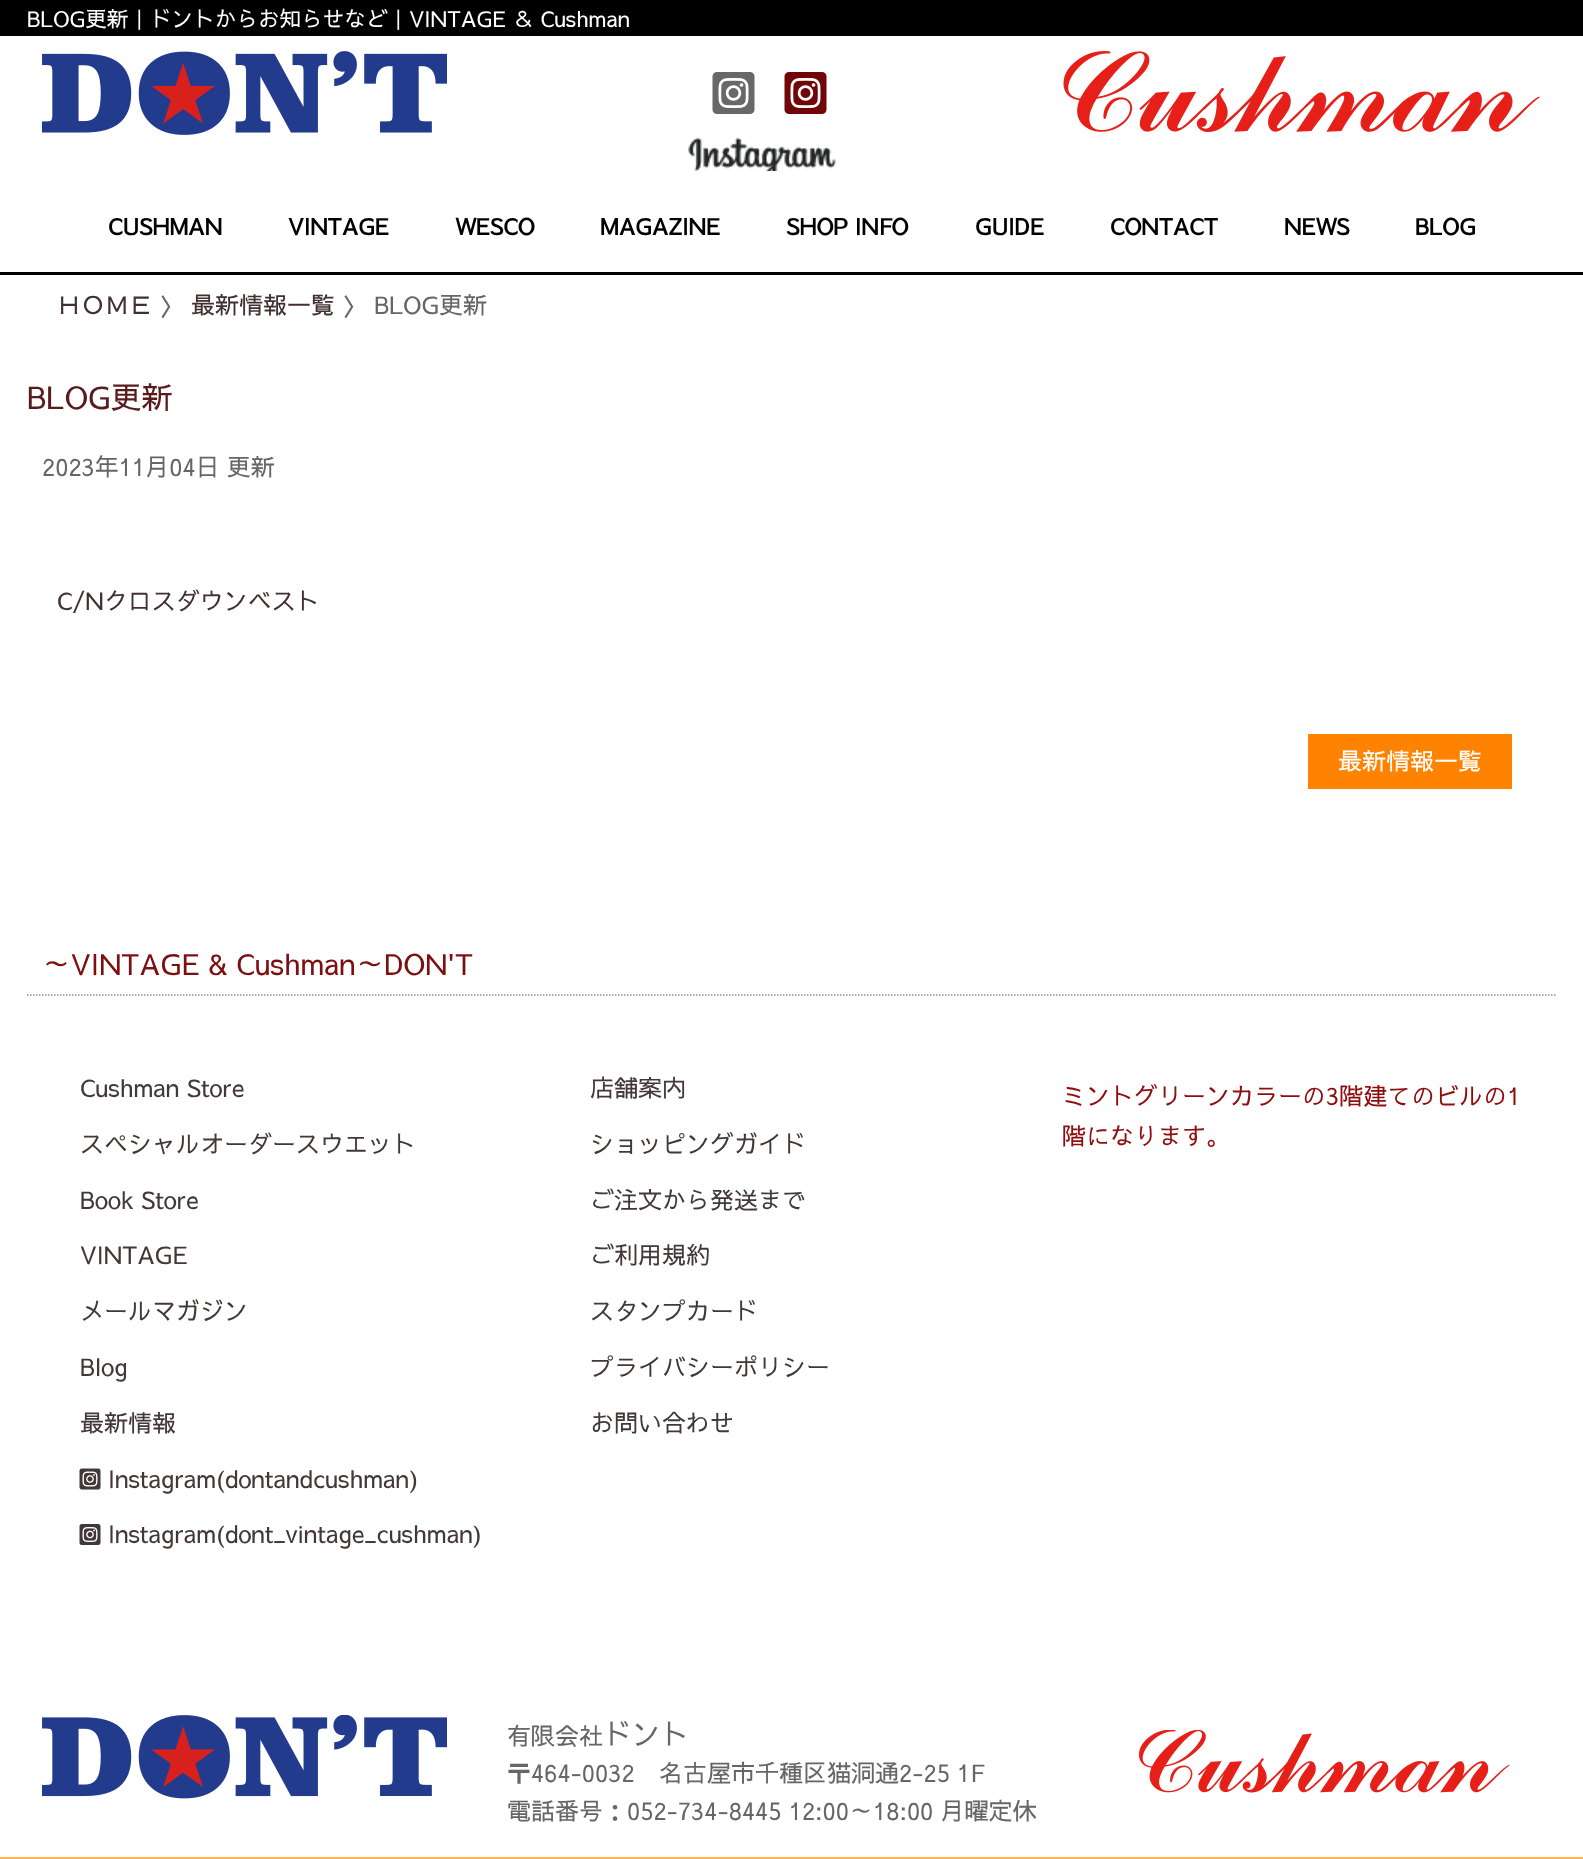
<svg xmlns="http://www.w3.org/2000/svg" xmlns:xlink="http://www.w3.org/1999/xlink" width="1583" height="1859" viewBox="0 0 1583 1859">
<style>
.cls-1{font:21.6px Sawarabi Gothic;fill:#ffffff}
.cls-2{font:bold 22.5px Sawarabi Gothic;fill:#000000}
.cls-3{font:24px Sawarabi Gothic;fill:#413030}
.cls-4{font:24px Sawarabi Gothic;fill:#666666}
.cls-5{font:31px Sawarabi Gothic;fill:#5a1b1d}
.cls-6{font:24px Sawarabi Gothic;fill:#ffffff}
.cls-7{font:28.75px Sawarabi Gothic;fill:#7d0f11}
.cls-8{font:24px Sawarabi Gothic;fill:#433838}
.cls-9{font:24px Sawarabi Gothic;fill:#8e0d0f}
.cls-10{font:28.75px Sawarabi Gothic;fill:#666666}
</style>
<rect width="100%" height="100%" fill="#ffffff"/>
<rect fill="#000000" x="0" y="0" width="1583" height="36"/>
<image xlink:href="image0.png" x="42" y="51" width="405" height="84"/>
<image xlink:href="image1.png" x="712" y="72" width="43" height="42"/>
<image xlink:href="image2.png" x="784" y="72" width="43" height="42"/>
<image xlink:href="image3.png" x="688" y="137" width="148" height="34"/>
<image xlink:href="image4.png" x="1063" y="51" width="478" height="81"/>
<rect fill="#000000" x="0" y="272" width="1583" height="3"/>
<rect fill="#ff8300" x="1308" y="734" width="204" height="55"/>
<path fill="none" stroke="#888888" stroke-width="1.5" stroke-dasharray="1.5 1.5" d="M27 995H1557"/>
<image xlink:href="image5.png" x="79" y="1468" width="22" height="22"/>
<image xlink:href="image6.png" x="79" y="1524" width="22" height="21"/>
<image xlink:href="image7.png" x="42" y="1715" width="405" height="84"/>
<image xlink:href="image8.png" x="1139" y="1730" width="371" height="63"/>
<rect fill="#ffb554" x="0" y="1857" width="1583" height="2"/>
<text class="cls-1" x="27" y="27">BLOG更新｜ドントからお知らせなど｜VINTAGE ＆ Cushman</text>
<text class="cls-2" x="108" y="235">CUSHMAN</text>
<text class="cls-2" x="288" y="235">VINTAGE</text>
<text class="cls-2" x="455" y="235">WESCO</text>
<text class="cls-2" x="600" y="235">MAGAZINE</text>
<text class="cls-2" x="786" y="235">SHOP INFO</text>
<text class="cls-2" x="975" y="235">GUIDE</text>
<text class="cls-2" x="1110" y="235">CONTACT</text>
<text class="cls-2" x="1284" y="235">NEWS</text>
<text class="cls-2" x="1415" y="235">BLOG</text>
<text class="cls-3" x="57" y="314">ＨＯＭＥ</text>
<text class="cls-4" x="160" y="314">〉</text>
<text class="cls-3" x="191" y="314">最新情報一覧</text>
<text class="cls-4" x="343" y="314">〉 BLOG更新</text>
<text class="cls-5" x="27" y="409">BLOG更新</text>
<text class="cls-4" x="42" y="476">2023年11月04日 更新</text>
<text class="cls-3" x="57" y="610">C/Nクロスダウンベスト</text>
<text class="cls-6" x="1338" y="770">最新情報一覧</text>
<text class="cls-7" x="42" y="975">～VINTAGE &amp; Cushman～DON'T</text>
<text class="cls-8" x="80" y="1097">Cushman Store</text>
<text class="cls-8" x="80" y="1153">スペシャルオーダースウエット</text>
<text class="cls-8" x="80" y="1209">Book Store</text>
<text class="cls-8" x="80" y="1264">VINTAGE</text>
<text class="cls-8" x="80" y="1320">メールマガジン</text>
<text class="cls-8" x="80" y="1376">Blog</text>
<text class="cls-8" x="80" y="1432">最新情報</text>
<text class="cls-8" x="108" y="1488">Instagram(dontandcushman)</text>
<text class="cls-8" x="108" y="1543">Instagram(dont_vintage_cushman)</text>
<text class="cls-8" x="590" y="1097">店舗案内</text>
<text class="cls-8" x="590" y="1153">ショッピングガイド</text>
<text class="cls-8" x="590" y="1209">ご注文から発送まで</text>
<text class="cls-8" x="590" y="1264">ご利用規約</text>
<text class="cls-8" x="590" y="1320">スタンプカード</text>
<text class="cls-8" x="590" y="1376">プライバシーポリシー</text>
<text class="cls-8" x="590" y="1432">お問い合わせ</text>
<text class="cls-9"><tspan x="1062" y="1105">ミントグリーンカラーの3階建てのビルの1</tspan><tspan x="1062" y="1145">階になります。</tspan></text>
<text class="cls-4" x="507" y="1745">有限会社</text>
<text class="cls-10" x="603" y="1745">ドント</text>
<text class="cls-4" x="507" y="1782">〒464-0032</text>
<text class="cls-4" x="659" y="1782">名古屋市千種区猫洞通2-25 1F</text>
<text class="cls-4" x="507" y="1820">電話番号：052-734-8445 12:00～18:00 月曜定休</text>
</svg>
